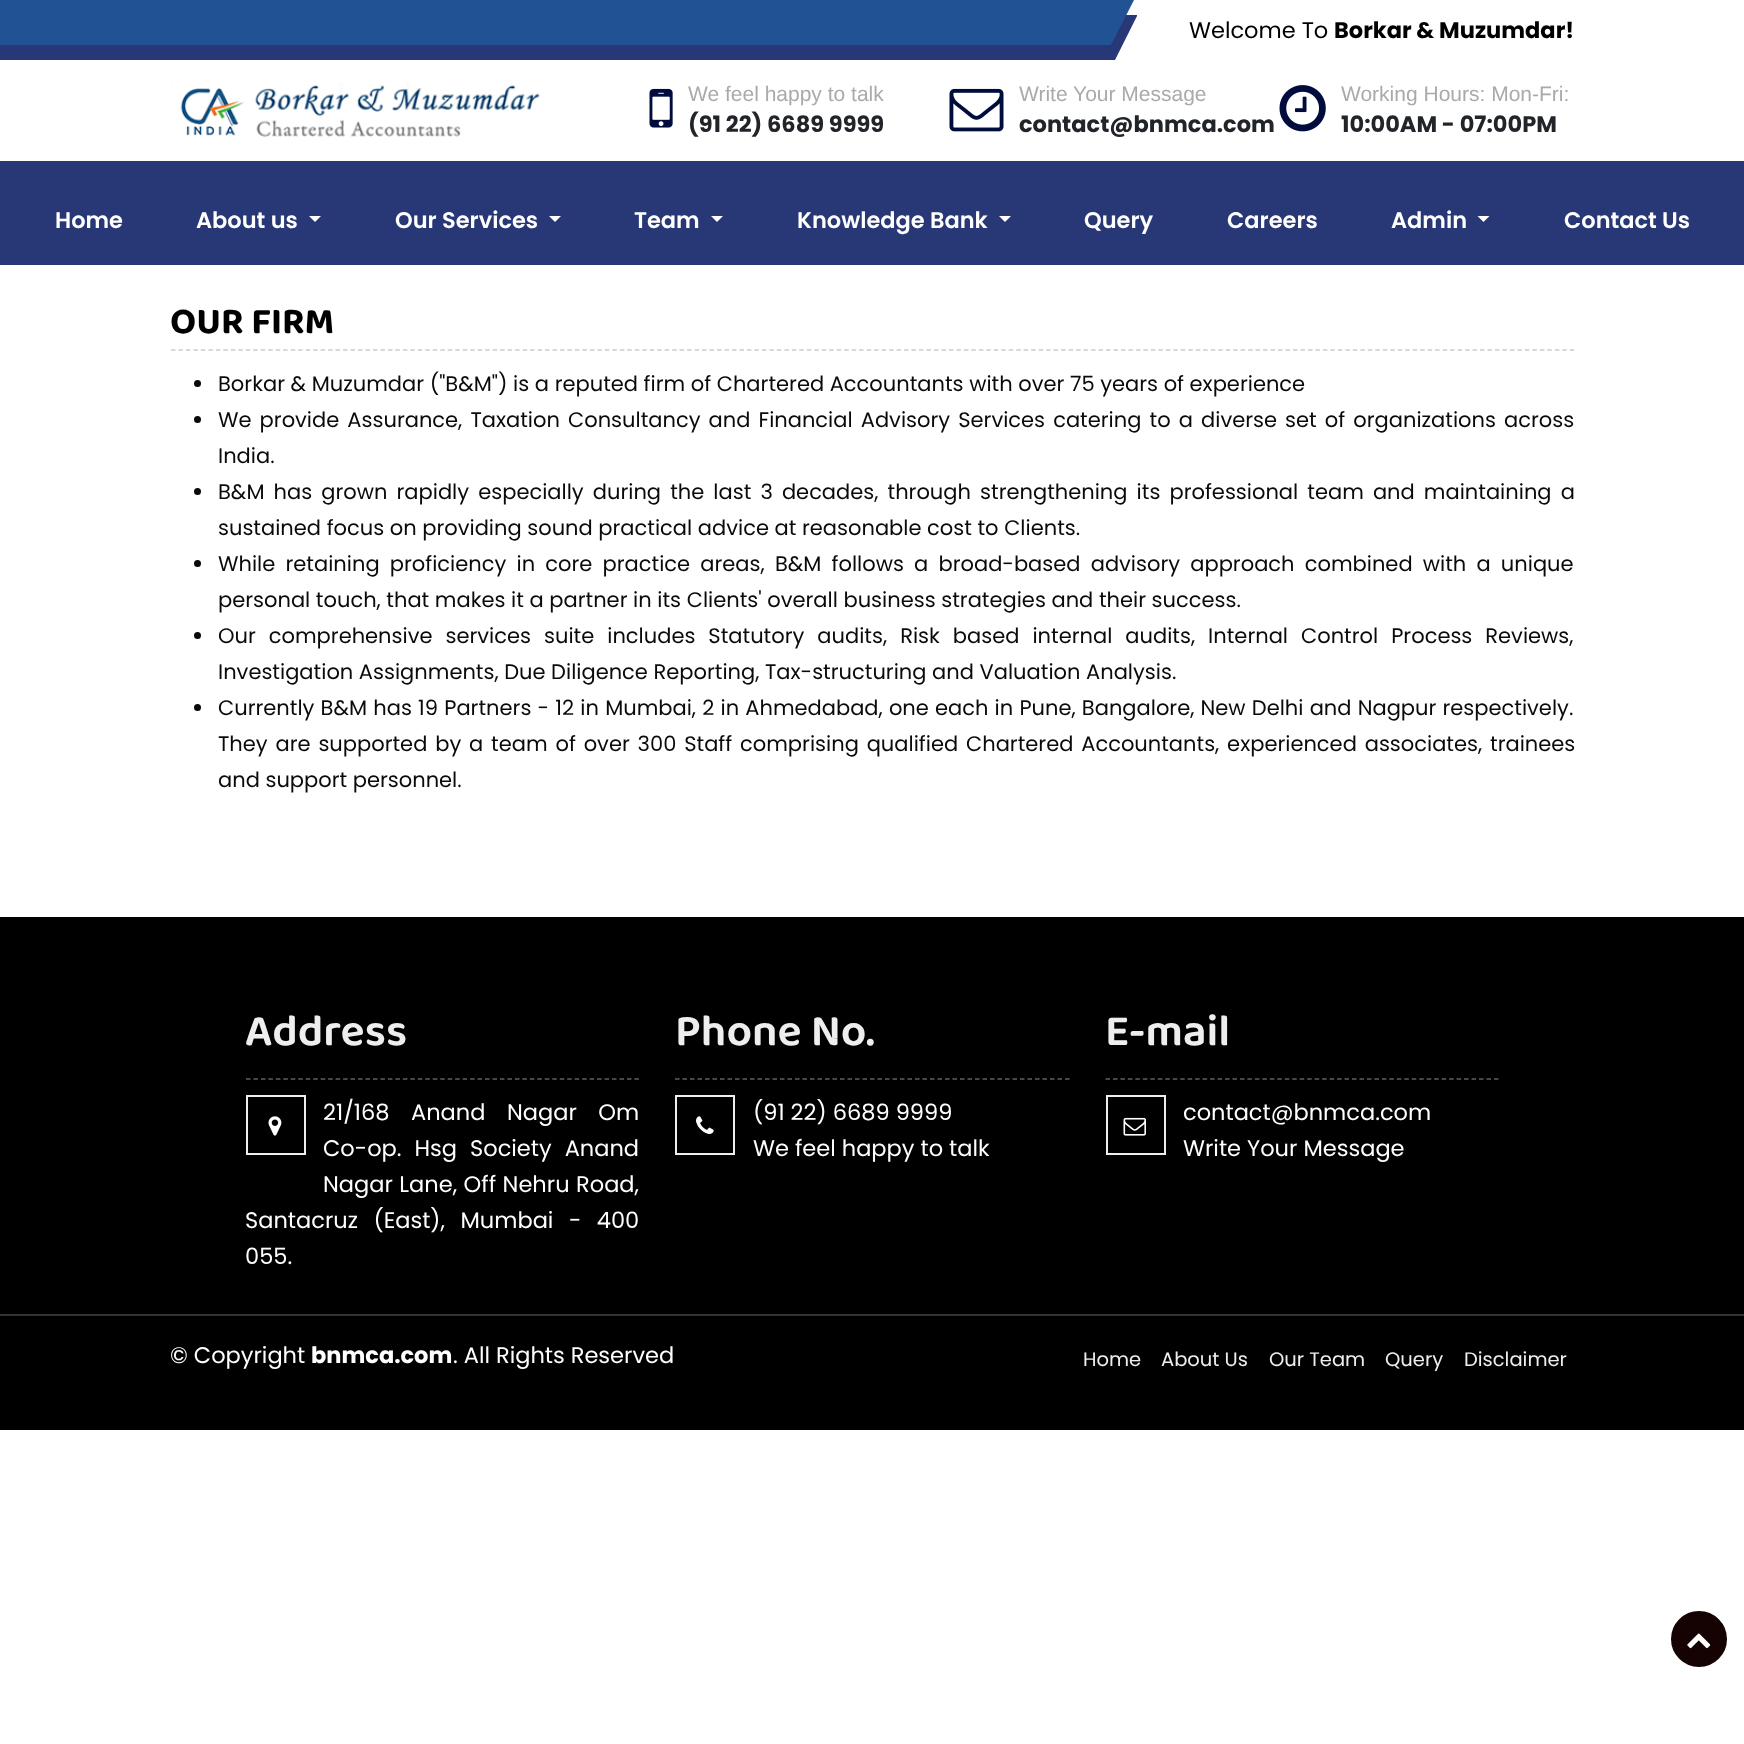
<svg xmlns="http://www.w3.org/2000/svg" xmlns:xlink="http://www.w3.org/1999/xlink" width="1744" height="1744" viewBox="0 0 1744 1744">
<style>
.cls-1{font:22.5px Poppins;fill:#000000}
.cls-2{font:bold 22.5px Poppins;fill:#000000}
.cls-3{font:21px Liberation Sans;fill:#aaaaaa}
.cls-4{font:bold 22.5px Poppins;fill:#212529}
.cls-5{font:600 22.5px Poppins;fill:#ffffff}
.cls-6{font:bold 37.5px 'Baloo Thambi 2';fill:#000000}
.cls-7{font:21px Poppins;fill:#090a0b}
.cls-8{font:600 45px 'Baloo Thambi 2';fill:#eeeeee}
.cls-9{font:22.5px Poppins;fill:#ffffff}
.cls-10{font:bold 22.5px Poppins;fill:#ffffff}
.cls-11{font:19.5px Poppins;fill:#eeeeee}
</style>
<rect width="100%" height="100%" fill="#ffffff"/>
<path fill="#283776" d="M0 15V60H1115L1137 16V15Z"/>
<path fill="#215294" d="M0 0V45H1111L1134 0Z"/>
<image xlink:href="image0.png" x="172" y="82" width="368" height="56"/>
<image xlink:href="image1.png" x="649" y="88" width="24" height="40"/>
<image xlink:href="image2.png" x="949" y="88" width="55" height="44"/>
<image xlink:href="image3.png" x="1279" y="85" width="47" height="47"/>
<path fill="#283776" d="M-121 262L-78 161H1744V265H-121Z"/>
<path fill="#ffffff" d="M309 216H321L315 222Z"/>
<path fill="#ffffff" d="M549 216H561L555 222Z"/>
<path fill="#ffffff" d="M711 216H723L717 222Z"/>
<path fill="#ffffff" d="M999 216H1011L1005 222Z"/>
<path fill="#ffffff" d="M1477.5 216H1489.5L1483.5 222Z"/>
<path fill="none" stroke="#cccccc" stroke-width="1.5" stroke-dasharray="4.5 2.98" d="M171 350H1575"/>
<circle fill="#090a0b" cx="197.5" cy="383.5" r="3.5"/>
<circle fill="#090a0b" cx="197.5" cy="419.5" r="3.5"/>
<circle fill="#090a0b" cx="197.5" cy="491.5" r="3.5"/>
<circle fill="#090a0b" cx="197.5" cy="563.5" r="3.5"/>
<circle fill="#090a0b" cx="197.5" cy="635.5" r="3.5"/>
<circle fill="#090a0b" cx="197.5" cy="707.5" r="3.5"/>
<rect fill="#000000" x="0" y="917" width="1744" height="513"/>
<path fill="none" stroke="#5f5e6e" stroke-width="1.5" stroke-dasharray="4.5 2.97" d="M246 1079H639"/>
<rect fill="none" stroke="#eeeeee" stroke-width="2" x="247" y="1096" width="58" height="58"/>
<image xlink:href="image4.png" x="268" y="1116" width="14" height="20"/>
<path fill="none" stroke="#5f5e6e" stroke-width="1.5" stroke-dasharray="4.5 3" d="M675 1079H1069.5"/>
<rect fill="none" stroke="#eeeeee" stroke-width="2" x="676" y="1096" width="58" height="58"/>
<image xlink:href="image5.png" x="696" y="1116" width="18" height="18"/>
<path fill="none" stroke="#5f5e6e" stroke-width="1.5" stroke-dasharray="4.5 2.97" d="M1105.5 1079H1498.5"/>
<rect fill="none" stroke="#eeeeee" stroke-width="2" x="1107" y="1096" width="58" height="58"/>
<image xlink:href="image6.png" x="1123" y="1117" width="23" height="19"/>
<rect fill="#333333" x="0" y="1314" width="1744" height="2"/>
<circle fill="#150303" stroke="#ffffff" stroke-width="3" cx="1699" cy="1639" r="29.5"/>
<image xlink:href="image7.png" x="1687" y="1633" width="24" height="16"/>
<text class="cls-1" x="1189" y="38">Welcome To</text>
<text class="cls-2" x="1334" y="38">Borkar &amp; Muzumdar!</text>
<text class="cls-3" x="688" y="101">We feel happy to talk</text>
<text class="cls-4" x="688" y="132">(91 22) 6689 9999</text>
<text class="cls-3" x="1019" y="101">Write Your Message</text>
<text class="cls-4" x="1019" y="132">contact@bnmca.com</text>
<text class="cls-3" x="1341" y="101">Working Hours: Mon-Fri:</text>
<text class="cls-4" x="1341" y="132">10:00AM - 07:00PM</text>
<text class="cls-5" x="55" y="228">Home</text>
<text class="cls-5" x="196" y="228">About us</text>
<text class="cls-5" x="395" y="228">Our Services</text>
<text class="cls-5" x="634" y="228">Team</text>
<text class="cls-5" x="797" y="228">Knowledge Bank</text>
<text class="cls-5" x="1084" y="228">Query</text>
<text class="cls-5" x="1227" y="228">Careers</text>
<text class="cls-5" x="1391" y="228">Admin</text>
<text class="cls-5" x="1564" y="228">Contact Us</text>
<text class="cls-6" x="170" y="333">OUR FIRM</text>
<text class="cls-7"><tspan x="218" y="391">Borkar &amp; Muzumdar ("B&amp;M") is a reputed firm of Chartered Accountants with over 75 years of experience</tspan><tspan x="218" y="427" word-spacing="2.5">We provide Assurance, Taxation Consultancy and Financial Advisory Services catering to a diverse set of organizations across</tspan><tspan x="218" y="463">India.</tspan><tspan x="218" y="499" word-spacing="3.5">B&amp;M has grown rapidly especially during the last 3 decades, through strengthening its professional team and maintaining a</tspan><tspan x="218" y="535">sustained focus on providing sound practical advice at reasonable cost to Clients.</tspan><tspan x="218" y="571" word-spacing="4.6">While retaining proficiency in core practice areas, B&amp;M follows a broad-based advisory approach combined with a unique</tspan><tspan x="218" y="607">personal touch, that makes it a partner in its Clients' overall business strategies and their success.</tspan><tspan x="218" y="643" word-spacing="7.4">Our comprehensive services suite includes Statutory audits, Risk based internal audits, Internal Control Process Reviews,</tspan><tspan x="218" y="679">Investigation Assignments, Due Diligence Reporting, Tax-structuring and Valuation Analysis.</tspan><tspan x="218" y="715" word-spacing="0.6">Currently B&amp;M has 19 Partners - 12 in Mumbai, 2 in Ahmedabad, one each in Pune, Bangalore, New Delhi and Nagpur respectively.</tspan><tspan x="218" y="751" word-spacing="2.25">They are supported by a team of over 300 Staff comprising qualified Chartered Accountants, experienced associates, trainees</tspan><tspan x="218" y="787">and support personnel.</tspan></text>
<text class="cls-8" x="245" y="1045">Address</text>
<text class="cls-9"><tspan x="323" y="1120" word-spacing="15.5">21/168 Anand Nagar Om</tspan><tspan x="323" y="1156" word-spacing="7">Co-op. Hsg Society Anand</tspan><tspan x="323" y="1192" word-spacing="0.5">Nagar Lane, Off Nehru Road,</tspan></text>
<text class="cls-9"><tspan x="245" y="1228" word-spacing="9.5">Santacruz (East), Mumbai - 400</tspan><tspan x="245" y="1264">055.</tspan></text>
<text class="cls-8" x="675" y="1045">Phone No.</text>
<text class="cls-9"><tspan x="753" y="1120">(91 22) 6689 9999</tspan><tspan x="753" y="1156">We feel happy to talk</tspan></text>
<text class="cls-8" x="1105" y="1045">E-mail</text>
<text class="cls-9"><tspan x="1183" y="1120">contact@bnmca.com</tspan><tspan x="1183" y="1156">Write Your Message</tspan></text>
<text class="cls-9" x="170" y="1363">© Copyright</text>
<text class="cls-10" x="311" y="1363">bnmca.com</text>
<text class="cls-9" x="453" y="1363">. All Rights Reserved</text>
<text class="cls-11" x="1083" y="1366">Home</text>
<text class="cls-11" x="1161" y="1366">About Us</text>
<text class="cls-11" x="1269" y="1366">Our Team</text>
<text class="cls-11" x="1385" y="1366">Query</text>
<text class="cls-11" x="1464" y="1366">Disclaimer</text>
</svg>
